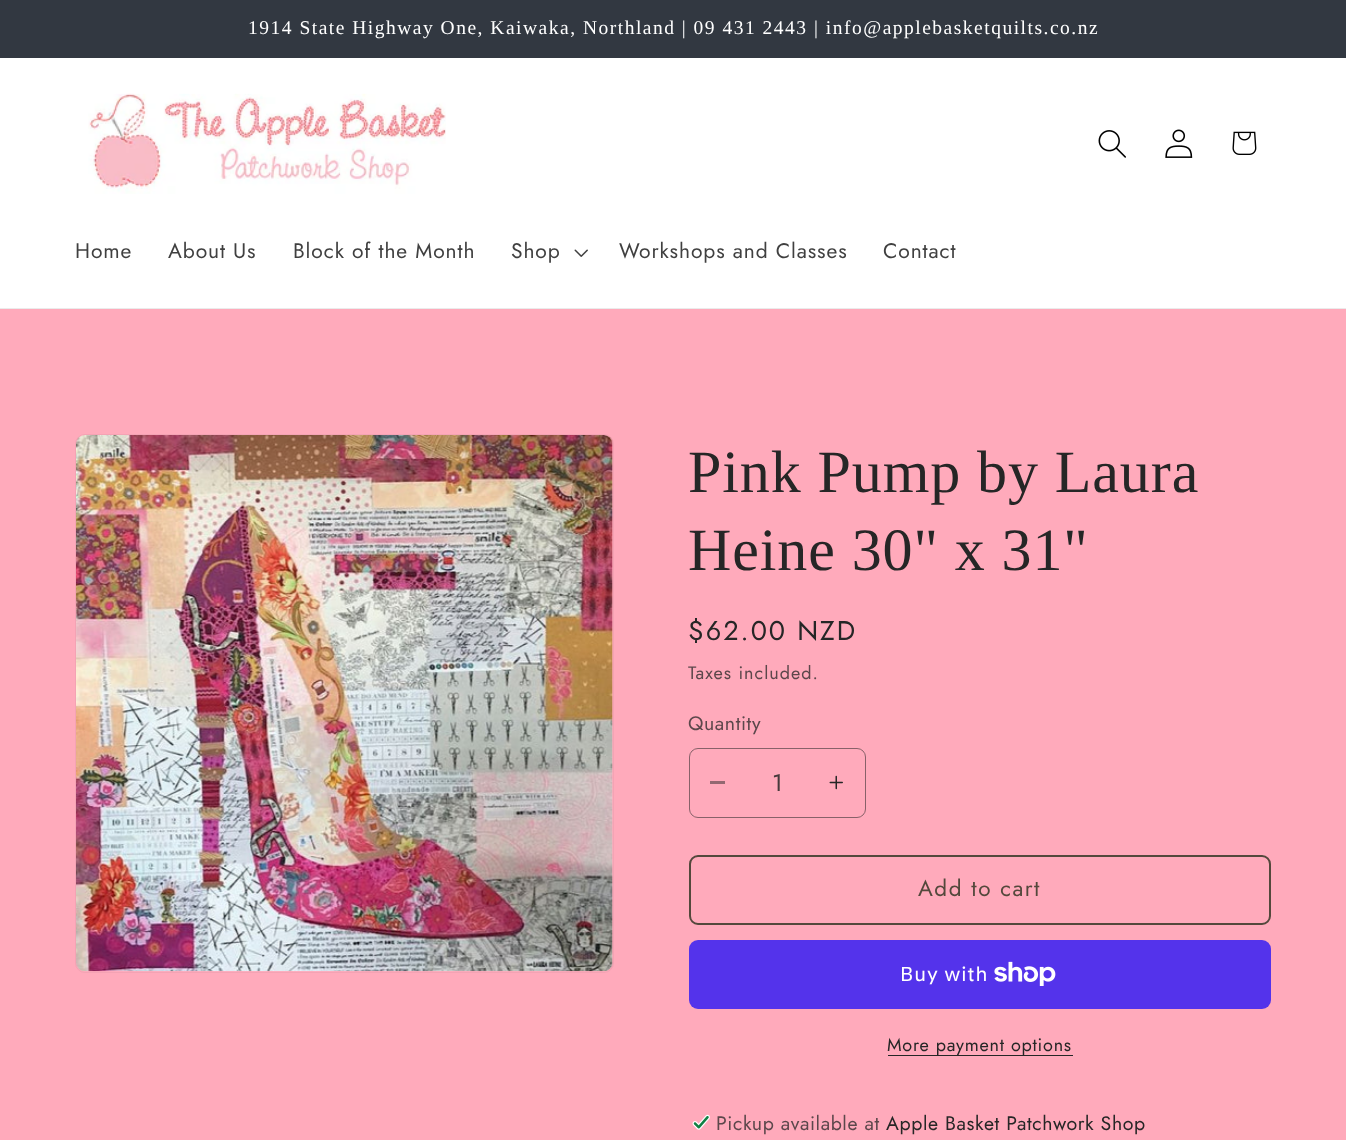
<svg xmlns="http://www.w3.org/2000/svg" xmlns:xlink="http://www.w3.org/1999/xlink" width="1346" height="1140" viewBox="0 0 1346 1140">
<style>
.cls-1{font:19.5px Liberation Serif;letter-spacing:1.5px;fill:#ffffff}
.cls-2{font:21px Jost;letter-spacing:0.9px;fill:#404040}
.cls-3{font:60px Liberation Serif;letter-spacing:0.9px;fill:#262626}
.cls-4{font:27px Jost;letter-spacing:2px;fill:#262626}
.cls-5{font:18px Jost;letter-spacing:1px;fill:#5c474b}
.cls-6{font:19.5px Jost;letter-spacing:0.6px;fill:#5c474b}
.cls-7{font:24px Jost;fill:#473a3c}
.cls-8{font:22.5px Jost;letter-spacing:1.5px;fill:#54483c}
.cls-9{font:20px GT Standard;letter-spacing:0.9px;fill:#ffffff}
.cls-10{font:18px Jost;letter-spacing:0.75px;fill:#262626}
.cls-11{font:19.5px Jost;letter-spacing:0.6px;fill:#262626}
</style>
<rect width="100%" height="100%" fill="#ffffff"/>
<rect fill="#323841" x="0" y="0" width="1346" height="58"/>
<rect fill="#ebebeb" x="0" y="308" width="1346" height="1"/>
<image xlink:href="image0.png" x="88" y="93" width="358" height="101"/>
<image xlink:href="image1.png" x="1098" y="130" width="28" height="28"/>
<image xlink:href="image2.png" x="1165" y="129" width="28" height="29"/>
<image xlink:href="image3.png" x="1232" y="131" width="25" height="24"/>
<image xlink:href="image4.png" x="574" y="249" width="14" height="8"/>
<rect fill="#ffaabb" x="0" y="309" width="1346" height="831"/>
<rect fill="none" stroke="#f4a3b4" x="75.5" y="434.5" width="538" height="538" rx="9.5"/>
<image xlink:href="image5.png" x="76" y="435" width="537" height="537"/>
<rect fill="#936871" x="710" y="781" width="15" height="3"/>
<image xlink:href="image6.png" x="829" y="775" width="14" height="15"/>
<rect fill="none" stroke="#886169" x="689.5" y="748.5" width="176" height="69" rx="8.5"/>
<rect fill="none" stroke="#54483c" stroke-width="2" x="690" y="856" width="580" height="68" rx="8"/>
<rect fill="#5433eb" x="689" y="940" width="582" height="69" rx="9"/>
<image xlink:href="image7.png" x="994" y="961" width="62" height="25"/>
<rect fill="#262626" x="888" y="1055" width="185" height="1"/>
<image xlink:href="image8.png" x="692" y="1114" width="18" height="16"/>
<text class="cls-1" x="248" y="34">1914 State Highway One, Kaiwaka, Northland | 09 431 2443 | info@applebasketquilts.co.nz</text>
<text class="cls-2" x="75" y="258">Home</text>
<text class="cls-2" x="168" y="258">About Us</text>
<text class="cls-2" x="293" y="258">Block of the Month</text>
<text class="cls-2" x="511" y="258">Shop</text>
<text class="cls-2" x="619" y="258">Workshops and Classes</text>
<text class="cls-2" x="883" y="258">Contact</text>
<text class="cls-3"><tspan x="688" y="492">Pink Pump by Laura</tspan><tspan x="688" y="570">Heine 30" x 31"</tspan></text>
<text class="cls-4" x="688" y="640">$62.00 NZD</text>
<text class="cls-5" x="688" y="679">Taxes included.</text>
<text class="cls-6" x="688" y="730">Quantity</text>
<text class="cls-7" x="772" y="791">1</text>
<text class="cls-8" x="918" y="896">Add to cart</text>
<text class="cls-9" x="900" y="981">Buy with</text>
<text class="cls-10" x="887" y="1051">More payment options</text>
<text class="cls-6" x="716" y="1130">Pickup available at</text>
<text class="cls-11" x="886" y="1130">Apple Basket Patchwork Shop</text>
</svg>
